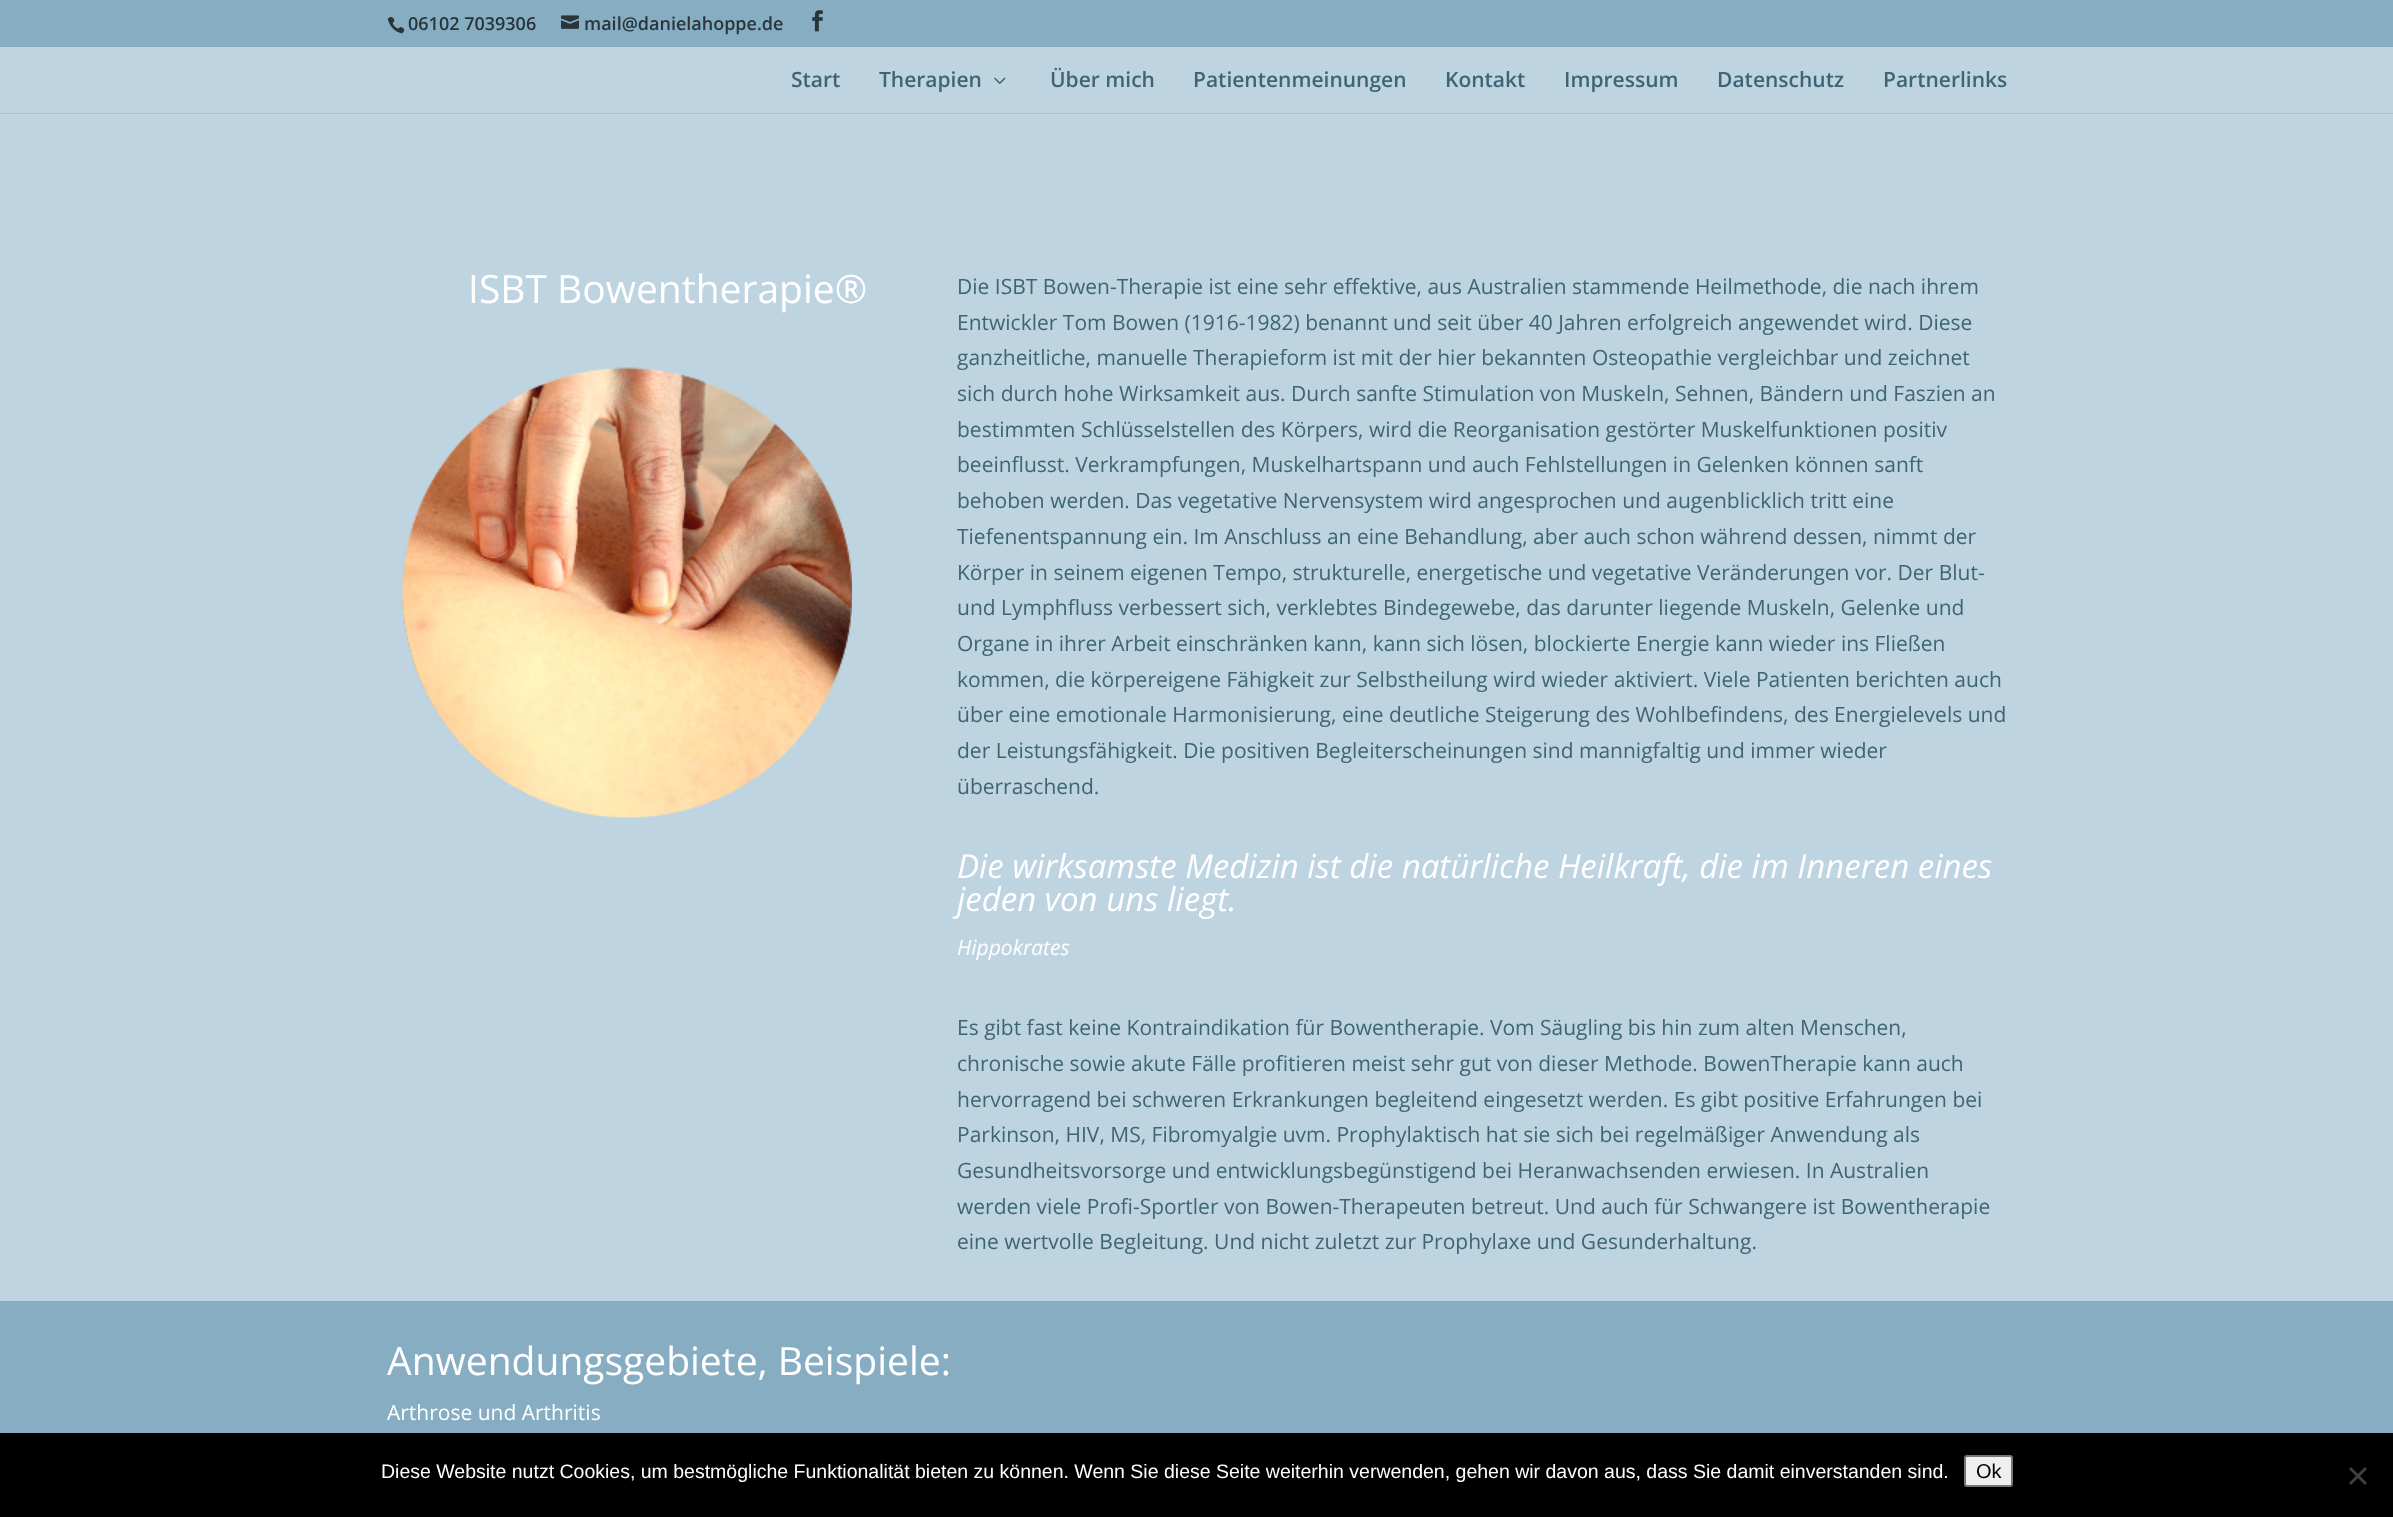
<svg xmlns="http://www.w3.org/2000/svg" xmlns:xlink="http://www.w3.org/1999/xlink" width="2393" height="1517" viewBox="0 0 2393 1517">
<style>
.cls-1{font:600 18px Open Sans;fill:#29343b}
.cls-2{font:600 21px Open Sans;fill:#3f6575}
.cls-3{font:39px Open Sans;fill:#ffffff}
.cls-4{font:21px Open Sans;fill:#3f6575}
.cls-5{font:italic 33px Open Sans;fill:#ffffff}
.cls-6{font:italic 21px Open Sans;fill:#ffffff}
.cls-7{font:21px Open Sans;fill:#ffffff}
.cls-8{font:19.5px Liberation Sans;fill:#ffffff}
.cls-9{font:20px Liberation Sans;fill:#000000}
</style>
<rect width="100%" height="100%" fill="#bed4e1"/>
<rect fill="#87adc3" x="0" y="0" width="2393" height="47"/>
<image xlink:href="image0.png" x="387" y="16" width="18" height="18"/>
<image xlink:href="image1.png" x="561" y="15" width="18" height="14"/>
<image xlink:href="image2.png" x="812" y="10" width="11" height="22"/>
<rect fill="#abbfcb" x="0" y="113" width="2393" height="1"/>
<image xlink:href="image3.png" x="994" y="77" width="12" height="7"/>
<image xlink:href="image4.png" x="402" y="367" width="450" height="451"/>
<rect fill="#87adc3" x="0" y="1301" width="2393" height="132"/>
<rect fill="#000000" x="0" y="1433" width="2393" height="84"/>
<rect fill="#efefef" stroke="#767676" stroke-width="2" x="1965" y="1456" width="47" height="30" rx="2"/>
<path fill="#404040" d="M2365 1467L2367 1469L2351 1485L2349 1483Z"/>
<path fill="#404040" d="M2349 1469L2351 1467L2367 1483L2365 1485Z"/>
<text class="cls-1" x="408" y="30">06102 7039306</text>
<text class="cls-1" x="584" y="30">mail@danielahoppe.de</text>
<text class="cls-2" x="791" y="87">Start</text>
<text class="cls-2" x="879" y="87">Therapien</text>
<text class="cls-2" x="1050" y="87">Über mich</text>
<text class="cls-2" x="1193" y="87">Patientenmeinungen</text>
<text class="cls-2" x="1445" y="87">Kontakt</text>
<text class="cls-2" x="1564" y="87">Impressum</text>
<text class="cls-2" x="1717" y="87">Datenschutz</text>
<text class="cls-2" x="1883" y="87">Partnerlinks</text>
<text class="cls-3" x="468" y="303">ISBT Bowentherapie®</text>
<text class="cls-4"><tspan x="957" y="294">Die ISBT Bowen-Therapie ist eine sehr effektive, aus Australien stammende Heilmethode, die nach ihrem</tspan><tspan x="957" y="330">Entwickler Tom Bowen (1916-1982) benannt und seit über 40 Jahren erfolgreich angewendet wird. Diese</tspan><tspan x="957" y="365">ganzheitliche, manuelle Therapieform ist mit der hier bekannten Osteopathie vergleichbar und zeichnet</tspan><tspan x="957" y="401">sich durch hohe Wirksamkeit aus. Durch sanfte Stimulation von Muskeln, Sehnen, Bändern und Faszien an</tspan><tspan x="957" y="437">bestimmten Schlüsselstellen des Körpers, wird die Reorganisation gestörter Muskelfunktionen positiv</tspan><tspan x="957" y="472">beeinflusst. Verkrampfungen, Muskelhartspann und auch Fehlstellungen in Gelenken können sanft</tspan><tspan x="957" y="508">behoben werden. Das vegetative Nervensystem wird angesprochen und augenblicklich tritt eine</tspan><tspan x="957" y="544">Tiefenentspannung ein. Im Anschluss an eine Behandlung, aber auch schon während dessen, nimmt der</tspan><tspan x="957" y="580">Körper in seinem eigenen Tempo, strukturelle, energetische und vegetative Veränderungen vor. Der Blut-</tspan><tspan x="957" y="615">und Lymphfluss verbessert sich, verklebtes Bindegewebe, das darunter liegende Muskeln, Gelenke und</tspan><tspan x="957" y="651">Organe in ihrer Arbeit einschränken kann, kann sich lösen, blockierte Energie kann wieder ins Fließen</tspan><tspan x="957" y="687">kommen, die körpereigene Fähigkeit zur Selbstheilung wird wieder aktiviert. Viele Patienten berichten auch</tspan><tspan x="957" y="722">über eine emotionale Harmonisierung, eine deutliche Steigerung des Wohlbefindens, des Energielevels und</tspan><tspan x="957" y="758">der Leistungsfähigkeit. Die positiven Begleiterscheinungen sind mannigfaltig und immer wieder</tspan><tspan x="957" y="794">überraschend.</tspan></text>
<text class="cls-5"><tspan x="957" y="878">Die wirksamste Medizin ist die natürliche Heilkraft, die im Inneren eines</tspan><tspan x="957" y="911">jeden von uns liegt.</tspan></text>
<text class="cls-6" x="957" y="955">Hippokrates</text>
<text class="cls-4"><tspan x="957" y="1035">Es gibt fast keine Kontraindikation für Bowentherapie. Vom Säugling bis hin zum alten Menschen,</tspan><tspan x="957" y="1071">chronische sowie akute Fälle profitieren meist sehr gut von dieser Methode. BowenTherapie kann auch</tspan><tspan x="957" y="1107">hervorragend bei schweren Erkrankungen begleitend eingesetzt werden. Es gibt positive Erfahrungen bei</tspan><tspan x="957" y="1142">Parkinson, HIV, MS, Fibromyalgie uvm. Prophylaktisch hat sie sich bei regelmäßiger Anwendung als</tspan><tspan x="957" y="1178">Gesundheitsvorsorge und entwicklungsbegünstigend bei Heranwachsenden erwiesen. In Australien</tspan><tspan x="957" y="1214">werden viele Profi-Sportler von Bowen-Therapeuten betreut. Und auch für Schwangere ist Bowentherapie</tspan><tspan x="957" y="1249">eine wertvolle Begleitung. Und nicht zuletzt zur Prophylaxe und Gesunderhaltung.</tspan></text>
<text class="cls-3" x="387" y="1375">Anwendungsgebiete, Beispiele:</text>
<text class="cls-7" x="387" y="1420">Arthrose und Arthritis</text>
<text class="cls-8" x="381" y="1478">Diese Website nutzt Cookies, um bestmögliche Funktionalität bieten zu können. Wenn Sie diese Seite weiterhin verwenden, gehen wir davon aus, dass Sie damit einverstanden sind.</text>
<text class="cls-9" x="1976" y="1478">Ok</text>
</svg>
